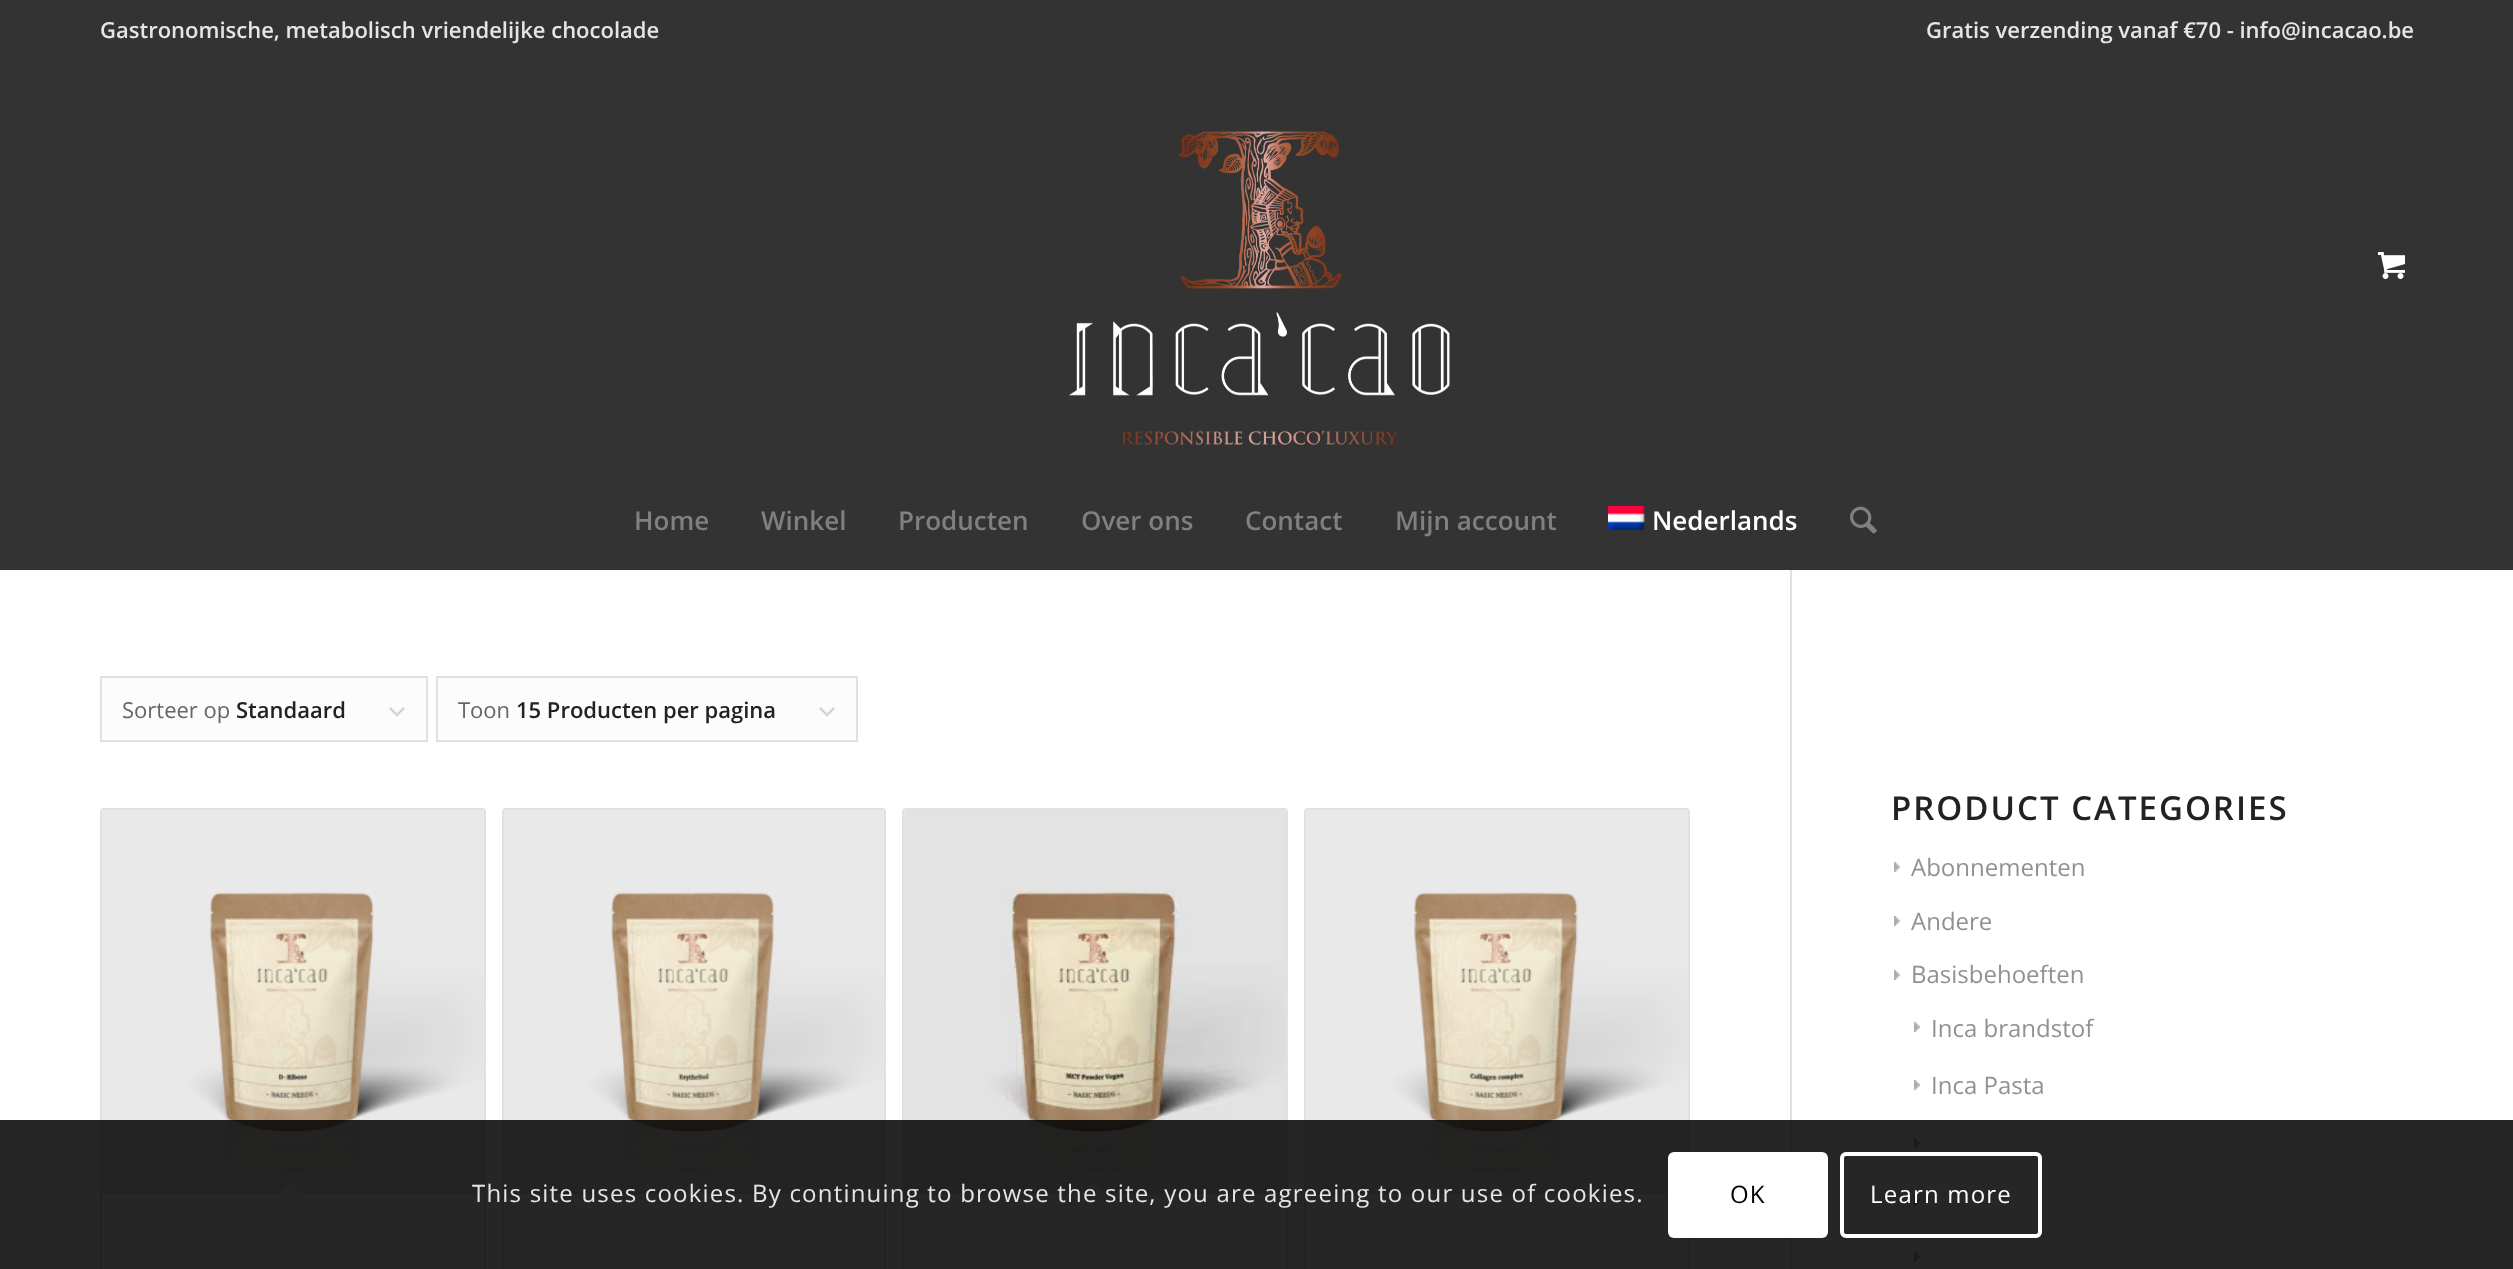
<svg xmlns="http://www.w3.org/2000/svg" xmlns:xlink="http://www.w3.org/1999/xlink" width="2513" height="1269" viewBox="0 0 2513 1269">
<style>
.cls-1{font:600 22px Open Sans;fill:#e5e5e5}
.cls-2{font:600 26px Open Sans;fill:#808080}
.cls-3{font:600 26px Open Sans;fill:#ffffff}
.cls-4{font:22px Open Sans;fill:#666666}
.cls-5{font:600 22px Open Sans;fill:#222222}
.cls-6{font:600 33px Open Sans;letter-spacing:2px;fill:#222222}
.cls-7{font:24px Open Sans;fill:#919191}
.cls-8{font:24px Open Sans;letter-spacing:1.2px;fill:#e5e5e5}
.cls-9{font:24px Open Sans;letter-spacing:1.2px;fill:#000000}
.cls-10{font:24px Open Sans;letter-spacing:1.2px;fill:#ffffff}
</style>
<rect width="100%" height="100%" fill="#333333"/>
<image xlink:href="image0.png" x="1069" y="131" width="381" height="314"/>
<image xlink:href="image1.png" x="2378" y="252" width="27" height="27"/>
<image xlink:href="image2.png" x="1608" y="506" width="37" height="24"/>
<image xlink:href="image3.png" x="1850" y="506" width="27" height="28"/>
<rect fill="#ffffff" x="0" y="570" width="2513" height="699"/>
<rect fill="#e1e1e1" x="1790" y="570" width="2" height="699"/>
<rect fill="#fcfcfc" x="102" y="678" width="324" height="62"/>
<image xlink:href="image4.png" x="389" y="707" width="16" height="10"/>
<rect fill="none" stroke="#e1e1e1" stroke-width="2" x="101" y="677" width="326" height="64"/>
<rect fill="#fcfcfc" x="438" y="678" width="418" height="62"/>
<image xlink:href="image4.png" x="819" y="707" width="16" height="10"/>
<rect fill="none" stroke="#e1e1e1" stroke-width="2" x="437" y="677" width="420" height="64"/>
<rect fill="none" stroke="#e1e1e1" stroke-width="2" x="101" y="809" width="384" height="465" rx="3"/>
<image xlink:href="image5.png" x="102" y="810" width="382" height="382"/>
<rect fill="#e1e1e1" x="102" y="1192" width="382" height="2"/>
<path fill="#ffffff" d="M290.5 1179L305 1193.5L290.5 1207.5L276.5 1193.5Z"/>
<path fill="#e1e1e1" d="M290.5 1179L305 1193.5L303.5 1195L289.5 1180.5Z"/>
<path fill="#e1e1e1" d="M290.5 1179L292 1180.5L278 1195L276.5 1193.5Z"/>
<rect fill="none" stroke="#e1e1e1" stroke-width="2" x="503" y="809" width="382" height="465" rx="3"/>
<image xlink:href="image6.png" x="504" y="810" width="380" height="382"/>
<rect fill="#e1e1e1" x="504" y="1192" width="380" height="2"/>
<path fill="#ffffff" d="M692 1179L706 1193.5L692 1207.5L678 1193.5Z"/>
<path fill="#e1e1e1" d="M692 1179L706 1193.5L704.5 1195L690.5 1180.5Z"/>
<path fill="#e1e1e1" d="M692 1179L693.5 1180.5L679 1195L678 1193.5Z"/>
<rect fill="none" stroke="#e1e1e1" stroke-width="2" x="903" y="809" width="384" height="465" rx="3"/>
<image xlink:href="image7.png" x="904" y="810" width="382" height="382"/>
<rect fill="#e1e1e1" x="904" y="1192" width="382" height="2"/>
<path fill="#ffffff" d="M1093 1179L1107.5 1193.5L1093 1207.5L1079 1193.5Z"/>
<path fill="#e1e1e1" d="M1093 1179L1107.5 1193.5L1106 1195L1092 1180.5Z"/>
<path fill="#e1e1e1" d="M1093 1179L1094.5 1180.5L1080.5 1195L1079 1193.5Z"/>
<rect fill="none" stroke="#e1e1e1" stroke-width="2" x="1305" y="809" width="384" height="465" rx="3"/>
<image xlink:href="image8.png" x="1306" y="810" width="382" height="382"/>
<rect fill="#e1e1e1" x="1306" y="1192" width="362" height="2"/>
<path fill="#ffffff" d="M1494.5 1179L1508.5 1193.5L1494.5 1207.5L1480.5 1193.5Z"/>
<path fill="#e1e1e1" d="M1494.5 1179L1508.5 1193.5L1507 1195L1493 1180.5Z"/>
<path fill="#e1e1e1" d="M1494.5 1179L1496 1180.5L1481.5 1195L1480.5 1193.5Z"/>
<image xlink:href="image9.png" x="1894" y="862" width="6" height="10"/>
<image xlink:href="image9.png" x="1894" y="916" width="6" height="10"/>
<image xlink:href="image9.png" x="1894" y="970" width="6" height="10"/>
<image xlink:href="image9.png" x="1914" y="1022" width="6" height="10"/>
<image xlink:href="image9.png" x="1914" y="1080" width="6" height="10"/>
<image xlink:href="image9.png" x="1914" y="1138" width="6" height="10"/>
<image xlink:href="image9.png" x="1914" y="1196" width="6" height="10"/>
<image xlink:href="image9.png" x="1914" y="1252" width="6" height="10"/>
<rect fill="#000000" fill-opacity="0.85" x="0" y="1120" width="2513" height="149"/>
<rect fill="#ffffff" x="1668" y="1152" width="160" height="86" rx="6"/>
<rect fill="none" stroke="#ffffff" stroke-width="4" x="1842" y="1154" width="198" height="82" rx="4"/>
<text class="cls-1" x="100" y="38">Gastronomische, metabolisch vriendelijke chocolade</text>
<text class="cls-1" x="1926" y="38">Gratis verzending vanaf €70 - info@incacao.be</text>
<text class="cls-2" x="634" y="530">Home</text>
<text class="cls-2" x="761" y="530">Winkel</text>
<text class="cls-2" x="898" y="530">Producten</text>
<text class="cls-2" x="1081" y="530">Over ons</text>
<text class="cls-2" x="1245" y="530">Contact</text>
<text class="cls-2" x="1395" y="530">Mijn account</text>
<text class="cls-3" x="1652" y="530">Nederlands</text>
<text class="cls-4" x="122" y="718">Sorteer op</text>
<text class="cls-5" x="236" y="718">Standaard</text>
<text class="cls-4" x="458" y="718">Toon</text>
<text class="cls-5" x="516" y="718">15 Producten per pagina</text>
<text class="cls-6" x="1891" y="820">PRODUCT CATEGORIES</text>
<text class="cls-7" x="1911" y="876">Abonnementen</text>
<text class="cls-7" x="1911" y="930">Andere</text>
<text class="cls-7" x="1911" y="983">Basisbehoeften</text>
<text class="cls-7" x="1931" y="1037">Inca brandstof</text>
<text class="cls-7" x="1931" y="1094">Inca Pasta</text>
<text class="cls-8" x="472" y="1202">This site uses cookies. By continuing to browse the site, you are agreeing to our use of cookies.</text>
<text class="cls-9" x="1730" y="1203">OK</text>
<text class="cls-10" x="1870" y="1203">Learn more</text>
</svg>
